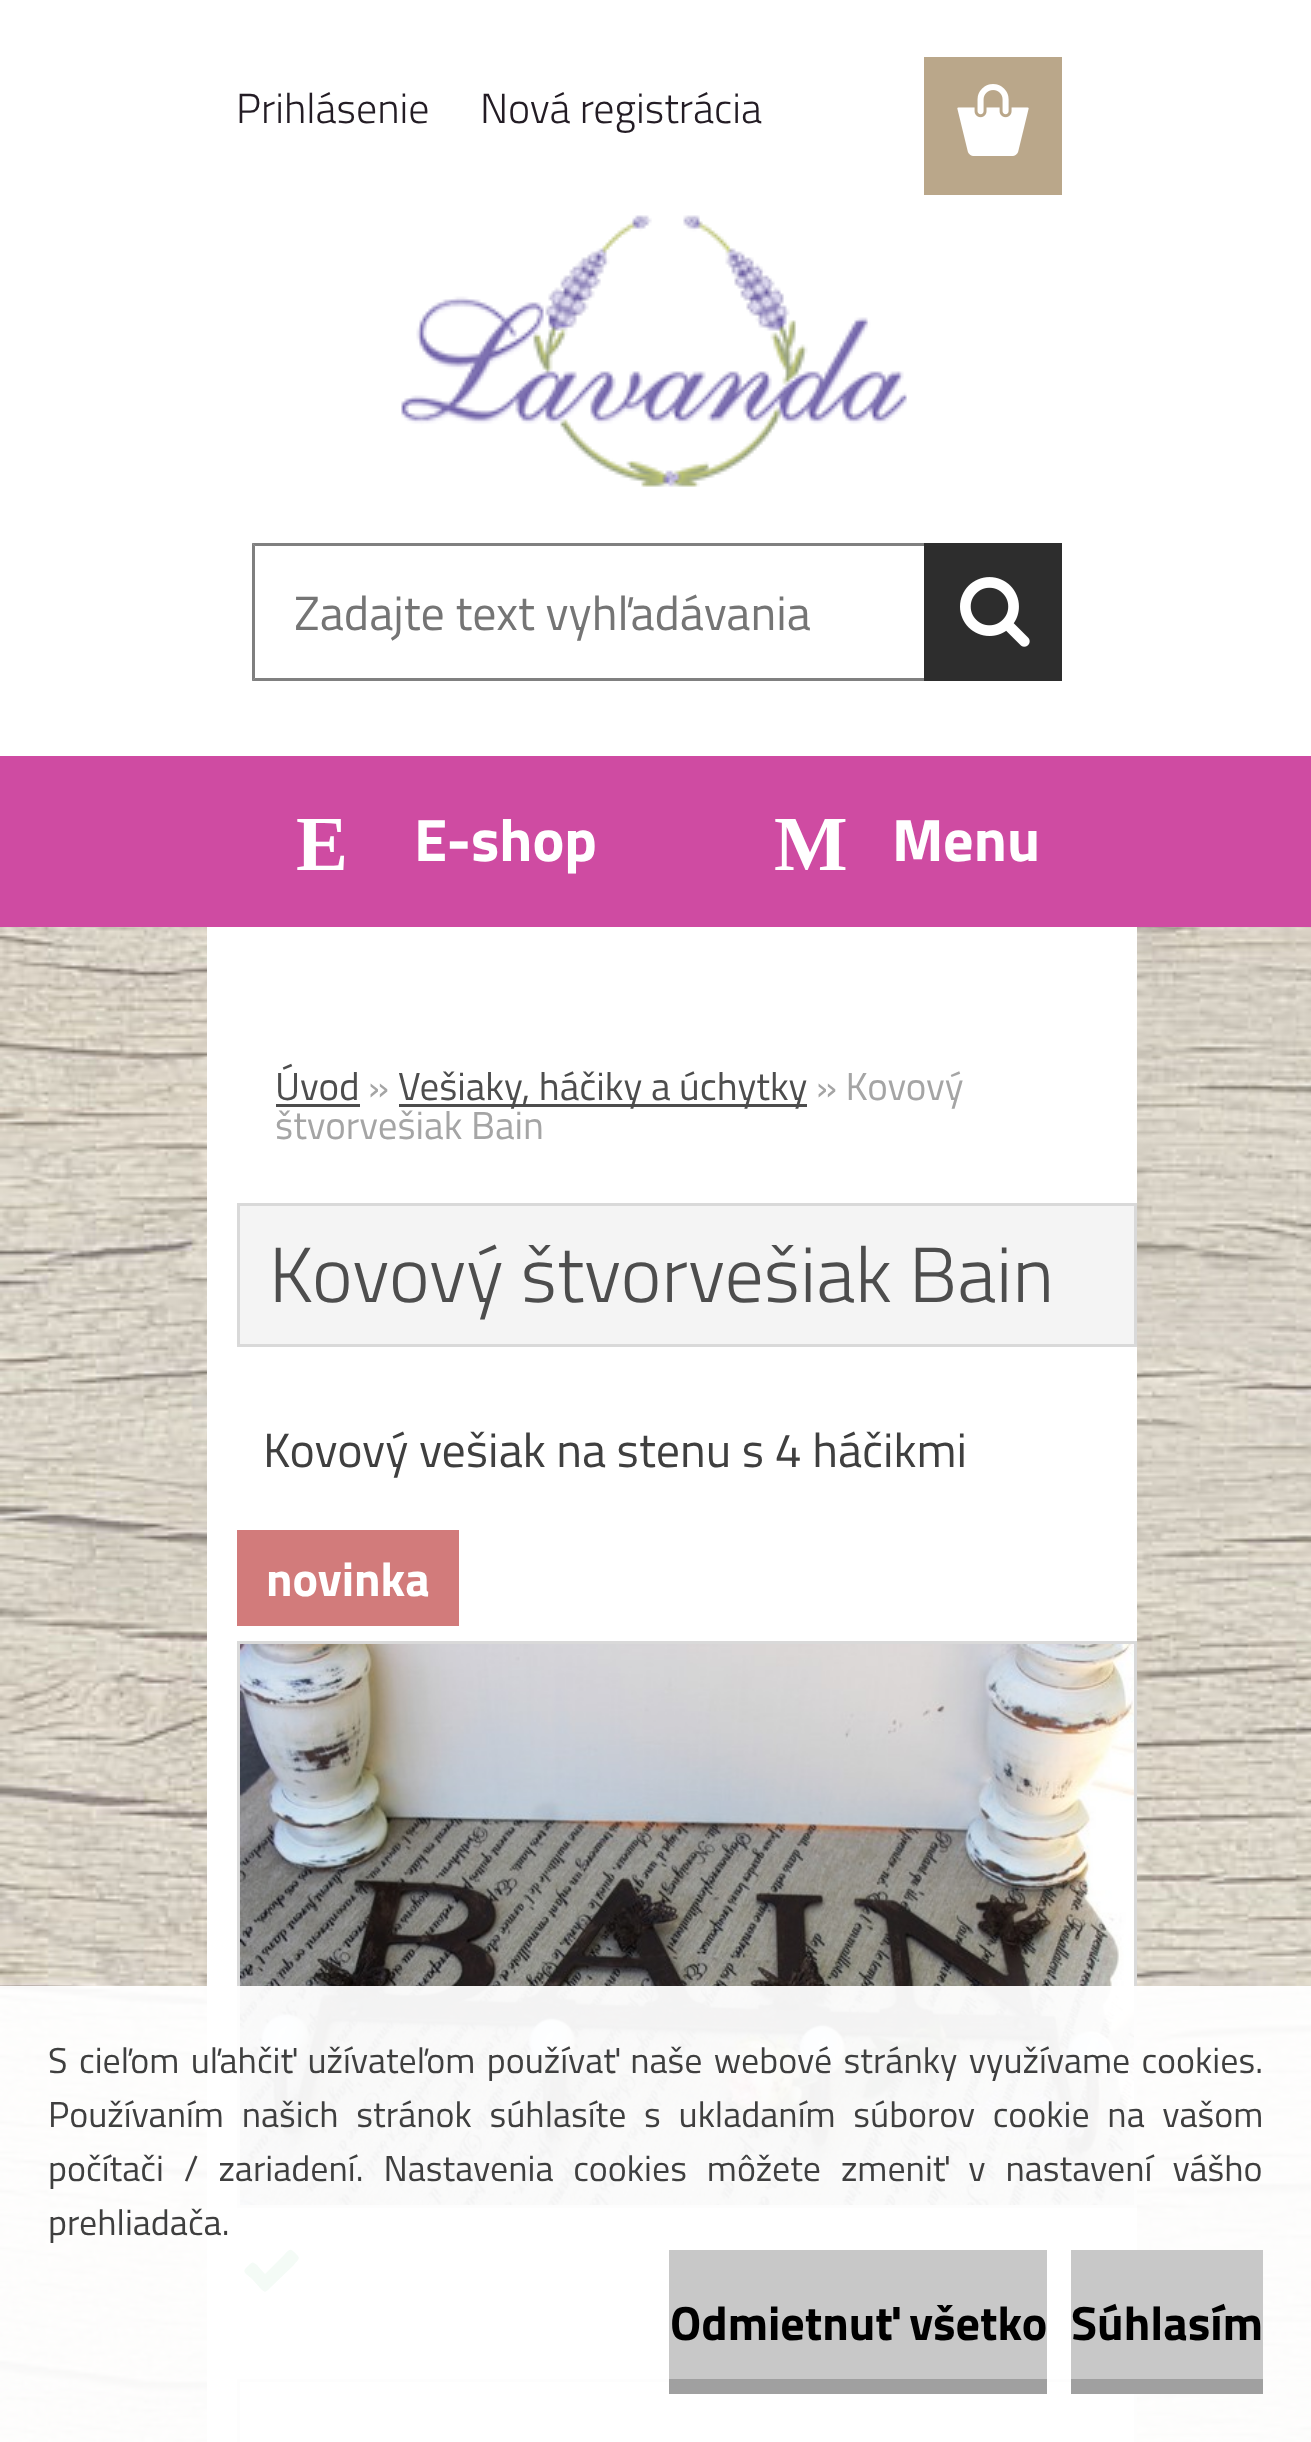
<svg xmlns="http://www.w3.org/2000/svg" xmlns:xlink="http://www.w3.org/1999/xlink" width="1311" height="2442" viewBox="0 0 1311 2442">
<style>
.cls-1{font:300 42px Titillium Web;fill:#231c24}
.cls-2{font:bold 78px Liberation Serif;fill:#ffffff}
.cls-3{font:bold 60px Titillium Web;fill:#ffffff}
.cls-4{font:39px Titillium Web;fill:#4d4d4d}
.cls-5{font:39px Titillium Web;fill:#a5a5a5}
.cls-6{font:300 78px Titillium Web;fill:#4d4d4d}
.cls-7{font:48px Titillium Web;fill:#3f3f3f}
.cls-8{font:bold 48px Titillium Web;fill:#ffffff}
.cls-9{font:48px Titillium Web;fill:#757575}
.cls-10{font:36px Titillium Web;fill:#3f3f3f}
.cls-11{font:bold 48px Titillium Web;fill:#000000}
</style>
<rect width="100%" height="100%" fill="#ffffff"/>
<image xlink:href="image0.png" x="0" y="927" width="1311" height="1515"/>
<rect fill="#baa78a" x="924" y="57" width="138" height="138"/>
<image xlink:href="image1.png" x="957" y="84" width="72" height="72"/>
<rect fill="#ffffff" x="207" y="927" width="930" height="1515"/>
<rect fill="#4d4d4d" x="276" y="1104" width="84" height="3"/>
<rect fill="#4d4d4d" x="399" y="1104" width="408" height="3"/>
<rect fill="#f4f4f4" stroke="#d9d9d9" stroke-width="3" x="238.5" y="1204.5" width="897" height="141"/>
<rect fill="#d27b7b" x="237" y="1530" width="222" height="96"/>
<rect fill="none" stroke="#d9d9d9" stroke-width="3" x="238.5" y="1642.5" width="897" height="564"/>
<image xlink:href="image2.png" x="240" y="1644" width="894" height="561"/>
<path fill="#2da759" d="M298 2256C301 2259 295 2263 294 2265L270 2288C265 2293 265 2293 260 2288L252 2279C245 2273 241 2272 248 2266C252 2262 252 2261 257 2265L265 2274L284 2255C291 2247 291 2249 298 2256Z"/>
<rect fill="#d9d9d9" x="237" y="2379" width="834" height="3"/>
<rect fill="#d9d9d9" x="1134" y="2394" width="3" height="48"/>
<rect fill="#d9d9d9" x="237" y="2379" width="3" height="63"/>
<rect fill="#f4f4f4" x="240" y="2382" width="894" height="60"/>
<rect fill="#cf4ba2" x="0" y="756" width="1311" height="171"/>
<image xlink:href="image3.png" x="401" y="215" width="506" height="272"/>
<path fill="#808080" d="M252 543H924V546H255Z"/>
<path fill="#808080" d="M924 681H252L255 678H924Z"/>
<path fill="#000000" fill-opacity="0.5" d="M252 681V543L255 546V678Z"/>
<rect fill="#2d2d2d" x="924" y="543" width="138" height="138"/>
<image xlink:href="image4.png" x="960" y="577" width="70" height="70"/>
<rect fill="#ffffff" fill-opacity="0.95" x="0" y="1986" width="1311" height="456"/>
<rect fill="#c8c8c8" x="669" y="2250" width="378" height="129"/>
<rect fill="#a0a0a0" x="669" y="2379" width="378" height="15"/>
<rect fill="#c8c8c8" x="1071" y="2250" width="192" height="129"/>
<rect fill="#a0a0a0" x="1071" y="2379" width="192" height="15"/>
<text class="cls-1" x="236" y="123">Prihlásenie</text>
<text class="cls-1" x="480" y="123">Nová registrácia</text>
<text class="cls-2" x="296" y="870">E</text>
<text class="cls-3" x="414" y="861">E-shop</text>
<text class="cls-2" x="774" y="870">M</text>
<text class="cls-3" x="892" y="861">Menu</text>
<text class="cls-4" x="275" y="1100">Úvod</text>
<text class="cls-5" x="368" y="1100">»</text>
<text class="cls-4" x="398" y="1100">Vešiaky, háčiky a úchytky</text>
<text class="cls-5" x="816" y="1100">» Kovový</text>
<text class="cls-5" x="275" y="1139">štvorvešiak Bain</text>
<text class="cls-6" x="269" y="1302">Kovový štvorvešiak Bain</text>
<text class="cls-7" x="263" y="1467">Kovový vešiak na stenu s 4 háčikmi</text>
<text class="cls-8" x="266" y="1596">novinka</text>
<text class="cls-9" x="294" y="630">Zadajte text vyhľadávania</text>
<text class="cls-10"><tspan x="48" y="2073" word-spacing="3.5">S cieľom uľahčiť užívateľom používať naše webové stránky využívame cookies.</tspan><tspan x="48" y="2127" word-spacing="9.75">Používaním našich stránok súhlasíte s ukladaním súborov cookie na vašom</tspan><tspan x="48" y="2181" word-spacing="12">počítači / zariadení. Nastavenia cookies môžete zmeniť v nastavení vášho</tspan><tspan x="48" y="2235">prehliadača.</tspan></text>
<text class="cls-11" x="670" y="2340">Odmietnuť všetko</text>
<text class="cls-11" x="1071" y="2340">Súhlasím</text>
</svg>
